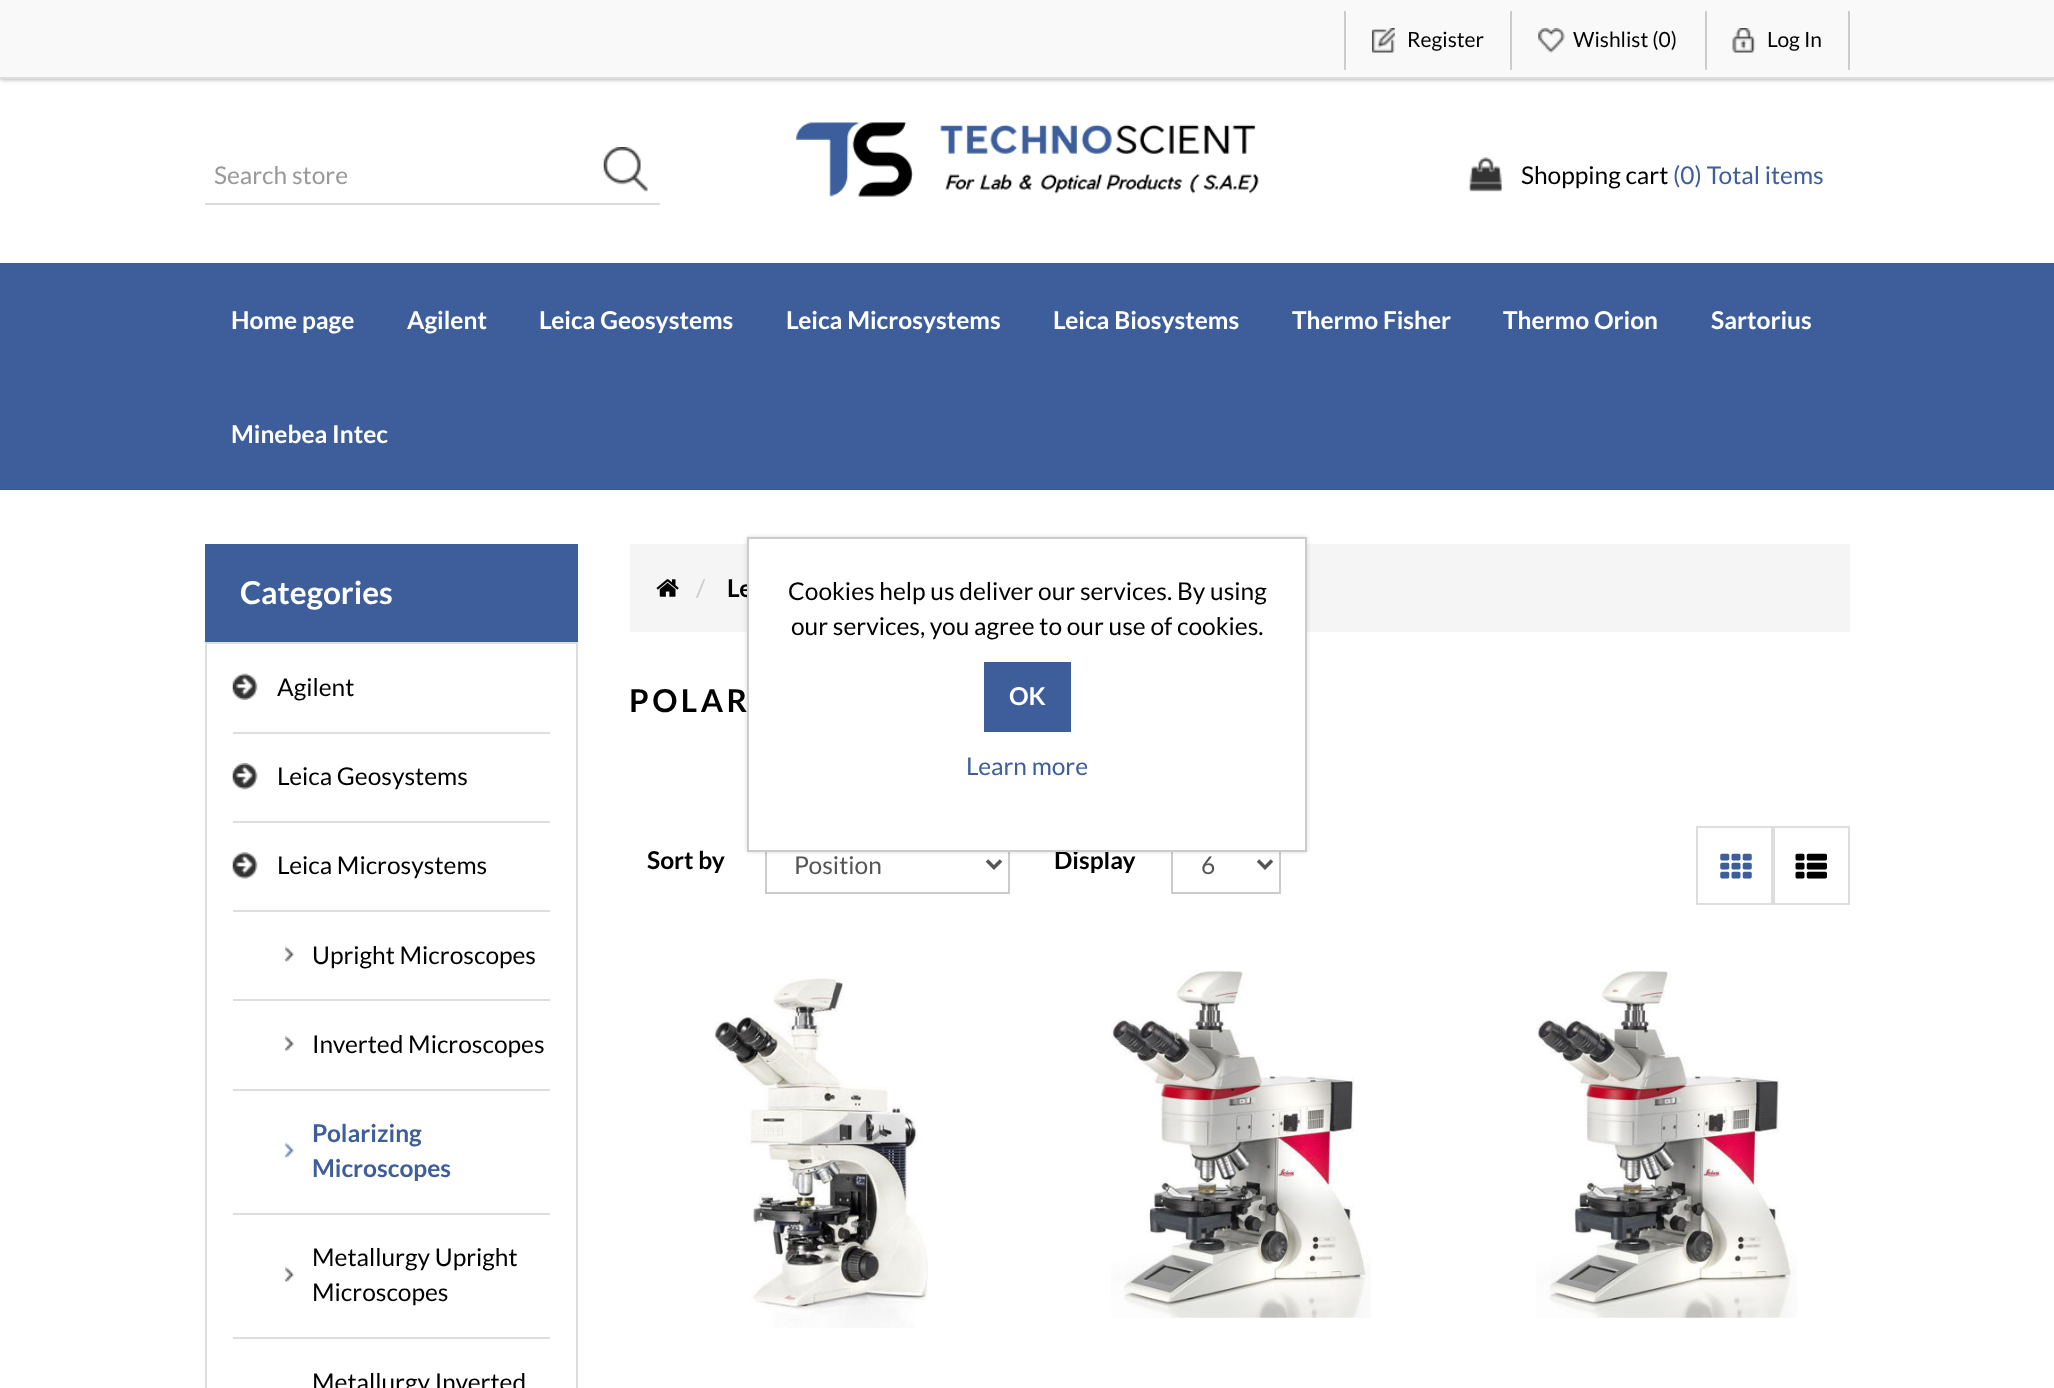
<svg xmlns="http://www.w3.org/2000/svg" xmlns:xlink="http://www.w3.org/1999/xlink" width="2054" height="1388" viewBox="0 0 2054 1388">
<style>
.cls-1{font:21px Lato;fill:#000000}
.cls-2{font:24.5px Lato;fill:#999999}
.cls-3{font:24.5px Lato;fill:#000000}
.cls-4{font:24.5px Lato;fill:#3e5e9b}
.cls-5{font:bold 24.5px Lato;fill:#ffffff}
.cls-6{font:bold 31.5px Lato;fill:#ffffff}
.cls-7{font:bold 24.5px Lato;fill:#3e5e9b}
.cls-8{font:24.5px Lato;fill:#cccccc}
.cls-9{font:bold 24.5px Lato;fill:#000000}
.cls-10{font:bold 31.5px Lato;letter-spacing:3.5px;fill:#000000}
.cls-11{font:24.5px Lato;fill:#555555}
</style>
<rect width="100%" height="100%" fill="#ffffff"/>
<rect fill="#999999" filter="blur(2.5px)" x="0" y="0" width="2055" height="79"/>
<rect fill="#f9f9f9" x="0" y="0" width="2054" height="77"/>
<rect fill="#dddddd" x="0" y="77" width="2054" height="2"/>
<image xlink:href="image0.png" x="1372" y="28" width="23" height="25"/>
<rect fill="#cccccc" x="1510" y="11" width="2" height="59"/>
<rect fill="#cccccc" x="1344" y="11" width="2" height="59"/>
<image xlink:href="image1.png" x="1538" y="28" width="27" height="25"/>
<rect fill="#cccccc" x="1705" y="11" width="2" height="59"/>
<image xlink:href="image2.png" x="1732" y="28" width="24" height="25"/>
<rect fill="#cccccc" x="1848" y="11" width="2" height="59"/>
<rect fill="#dddddd" x="205" y="203" width="455" height="2"/>
<image xlink:href="image3.png" x="603" y="147" width="45" height="45"/>
<image xlink:href="image4.png" x="796" y="122" width="463" height="75"/>
<image xlink:href="image5.png" x="1468" y="157" width="35" height="35"/>
<rect fill="#3e5e9b" x="0" y="263" width="2054" height="227"/>
<rect fill="#3e5e9b" x="205" y="544" width="373" height="98"/>
<rect fill="none" stroke="#dddddd" stroke-width="2" x="206" y="643" width="371" height="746"/>
<image xlink:href="image6.png" x="232" y="673" width="26" height="27"/>
<rect fill="#dddddd" x="233" y="732" width="317" height="2"/>
<image xlink:href="image7.png" x="232" y="763" width="26" height="27"/>
<rect fill="#dddddd" x="233" y="821" width="317" height="2"/>
<image xlink:href="image8.png" x="232" y="852" width="26" height="27"/>
<rect fill="#dddddd" x="233" y="910" width="317" height="2"/>
<image xlink:href="image9.png" x="285" y="946" width="9" height="17"/>
<rect fill="#dddddd" x="233" y="999" width="317" height="2"/>
<image xlink:href="image10.png" x="285" y="1036" width="9" height="16"/>
<rect fill="#dddddd" x="233" y="1089" width="317" height="2"/>
<image xlink:href="image11.png" x="285" y="1142" width="9" height="17"/>
<rect fill="#dddddd" x="233" y="1213" width="317" height="2"/>
<image xlink:href="image10.png" x="285" y="1267" width="9" height="16"/>
<rect fill="#dddddd" x="233" y="1337" width="317" height="2"/>
<rect fill="#f5f5f5" x="630" y="544" width="1220" height="88"/>
<image xlink:href="image12.png" x="656" y="579" width="23" height="18"/>
<rect fill="none" stroke="#cccccc" stroke-width="2" x="766" y="836" width="243" height="57"/>
<path fill="none" stroke="#555555" stroke-width="3.5" d="M987 860.5L994 867.5L1001 860.5"/>
<rect fill="none" stroke="#cccccc" stroke-width="2" x="1172" y="836" width="108" height="57"/>
<path fill="none" stroke="#555555" stroke-width="3.5" d="M1258 860.5L1265 867.5L1272 860.5"/>
<rect fill="none" stroke="#dddddd" stroke-width="2" x="1697" y="827" width="77" height="77"/>
<image xlink:href="image13.png" x="1720" y="853" width="32" height="26"/>
<rect fill="none" stroke="#dddddd" stroke-width="2" x="1772" y="827" width="77" height="77"/>
<image xlink:href="image14.png" x="1795" y="853" width="32" height="26"/>
<image xlink:href="image15.png" x="714" y="978" width="214" height="350"/>
<image xlink:href="image16.png" x="1111" y="970" width="260" height="348"/>
<image xlink:href="image17.png" x="1536" y="970" width="261" height="348"/>
<rect fill="#000000" fill-opacity="0.15" filter="blur(2px)" x="747" y="537" width="560" height="315"/>
<text class="cls-1" x="1407" y="47">Register</text>
<text class="cls-1" x="1573" y="47">Wishlist (0)</text>
<text class="cls-1" x="1767" y="47">Log In</text>
<text class="cls-2" x="214" y="184">Search store</text>
<text class="cls-3" x="1521" y="184">Shopping cart</text>
<text class="cls-4" x="1673" y="184">(0) Total items</text>
<text class="cls-5" x="231" y="329">Home page</text>
<text class="cls-5" x="407" y="329">Agilent</text>
<text class="cls-5" x="539" y="329">Leica Geosystems</text>
<text class="cls-5" x="786" y="329">Leica Microsystems</text>
<text class="cls-5" x="1053" y="329">Leica Biosystems</text>
<text class="cls-5" x="1292" y="329">Thermo Fisher</text>
<text class="cls-5" x="1503" y="329">Thermo Orion</text>
<text class="cls-5" x="1711" y="329">Sartorius</text>
<text class="cls-5" x="231" y="443">Minebea Intec</text>
<text class="cls-6" x="240" y="604">Categories</text>
<text class="cls-3" x="277" y="696">Agilent</text>
<text class="cls-3" x="277" y="785">Leica Geosystems</text>
<text class="cls-3" x="277" y="874">Leica Microsystems</text>
<text class="cls-3" x="312" y="964">Upright Microscopes</text>
<text class="cls-3" x="312" y="1053">Inverted Microscopes</text>
<text class="cls-7"><tspan x="312" y="1142">Polarizing</tspan><tspan x="312" y="1177">Microscopes</tspan></text>
<text class="cls-3"><tspan x="312" y="1266">Metallurgy Upright</tspan><tspan x="312" y="1301">Microscopes</tspan></text>
<text class="cls-3" x="312" y="1391">Metallurgy Inverted</text>
<text class="cls-8" x="696" y="597">/</text>
<text class="cls-9" x="727" y="597">Le</text>
<text class="cls-10" x="629" y="712">POLAR</text>
<text class="cls-9" x="647" y="869">Sort by</text>
<text class="cls-11" x="794" y="874">Position</text>
<text class="cls-9" x="1054" y="869">Display</text>
<text class="cls-11" x="1201" y="874">6</text>
<rect fill="#ffffff" stroke="#cccccc" stroke-width="2" x="748" y="538" width="558" height="313"/>
<text class="cls-3" x="788" y="600">Cookies help us deliver our services. By using</text>
<text class="cls-3" x="791" y="635">our services, you agree to our use of cookies.</text>
<rect fill="#3e5e9b" x="984" y="662" width="87" height="70"/>
<text class="cls-5" x="1009" y="705">OK</text>
<text class="cls-4" x="966" y="775">Learn more</text>
</svg>
